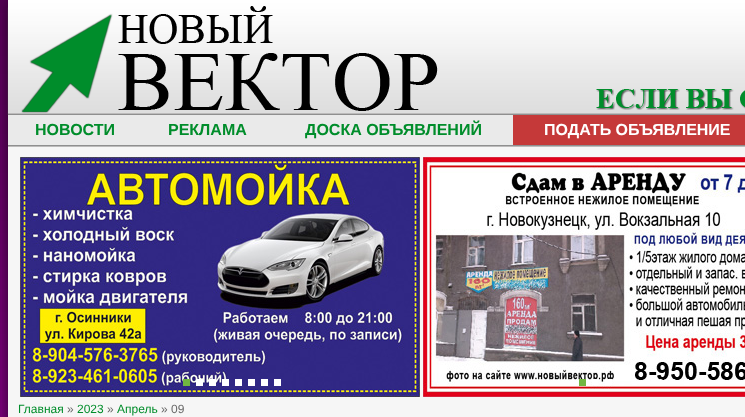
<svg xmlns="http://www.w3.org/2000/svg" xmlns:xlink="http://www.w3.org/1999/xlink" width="745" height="417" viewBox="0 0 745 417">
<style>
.cls-1{font:bold 16px Liberation Sans;fill:#008d2b}
.cls-2{font:bold 16px Liberation Sans;fill:#ffffff}
.cls-3{font:12px Liberation Sans;fill:#008d2b}
.cls-4{font:12px Liberation Sans;fill:#676767}
</style>
<rect width="100%" height="100%" fill="#ffffff"/>
<image xlink:href="image0.png" x="0" y="0" width="8" height="417"/>
<image xlink:href="image1.png" x="2" y="0" width="743" height="115"/>
<image xlink:href="image2.png" x="2" y="115" width="6" height="32"/>
<rect fill="#eaeaea" x="8" y="115" width="505" height="30"/>
<rect fill="#c53939" x="513" y="115" width="232" height="30"/>
<image xlink:href="image3.png" x="8" y="145" width="737" height="2"/>
<image xlink:href="image4.png" x="2" y="147" width="743" height="270"/>
<image xlink:href="image5.png" x="20" y="157" width="400" height="240"/>
<rect fill="#71b640" x="183" y="379" width="7" height="7"/>
<rect fill="#ffffff" x="196" y="379" width="7" height="7"/>
<rect fill="#ffffff" x="209" y="379" width="7" height="7"/>
<rect fill="#ffffff" x="222" y="379" width="7" height="7"/>
<rect fill="#ffffff" x="235" y="379" width="7" height="7"/>
<rect fill="#ffffff" x="248" y="379" width="7" height="7"/>
<rect fill="#ffffff" x="261" y="379" width="7" height="7"/>
<rect fill="#ffffff" x="274" y="379" width="7" height="7"/>
<image xlink:href="image6.png" x="423" y="157" width="322" height="240"/>
<rect fill="#71b640" x="579" y="379" width="7" height="7"/>
<rect fill="#ffffff" x="592" y="379" width="6" height="6"/>
<rect fill="#ffffff" x="605" y="379" width="7" height="6"/>
<rect fill="#ffffff" x="619" y="384" width="5" height="1"/>
<rect fill="#ffffff" x="632" y="384" width="5" height="1"/>
<rect fill="#ffffff" x="647" y="384" width="3" height="1"/>
<image xlink:href="image7.png" x="659" y="379" width="4" height="1"/>
<image xlink:href="image8.png" x="674" y="379" width="2" height="1"/>
<rect fill="#ffffff" x="684" y="379" width="5" height="6"/>
<text class="cls-1" x="35" y="135">НОВОСТИ</text>
<text class="cls-1" x="168" y="135">РЕКЛАМА</text>
<text class="cls-1" x="305" y="135">ДОСКА ОБЪЯВЛЕНИЙ</text>
<text class="cls-2" x="544" y="135">ПОДАТЬ ОБЪЯВЛЕНИЕ</text>
<text class="cls-3" x="18" y="413">Главная</text>
<text class="cls-4" x="67" y="413">»</text>
<text class="cls-3" x="77" y="413">2023</text>
<text class="cls-4" x="107" y="413">»</text>
<text class="cls-3" x="117" y="413">Апрель</text>
<text class="cls-4" x="161" y="413">» 09</text>
</svg>
